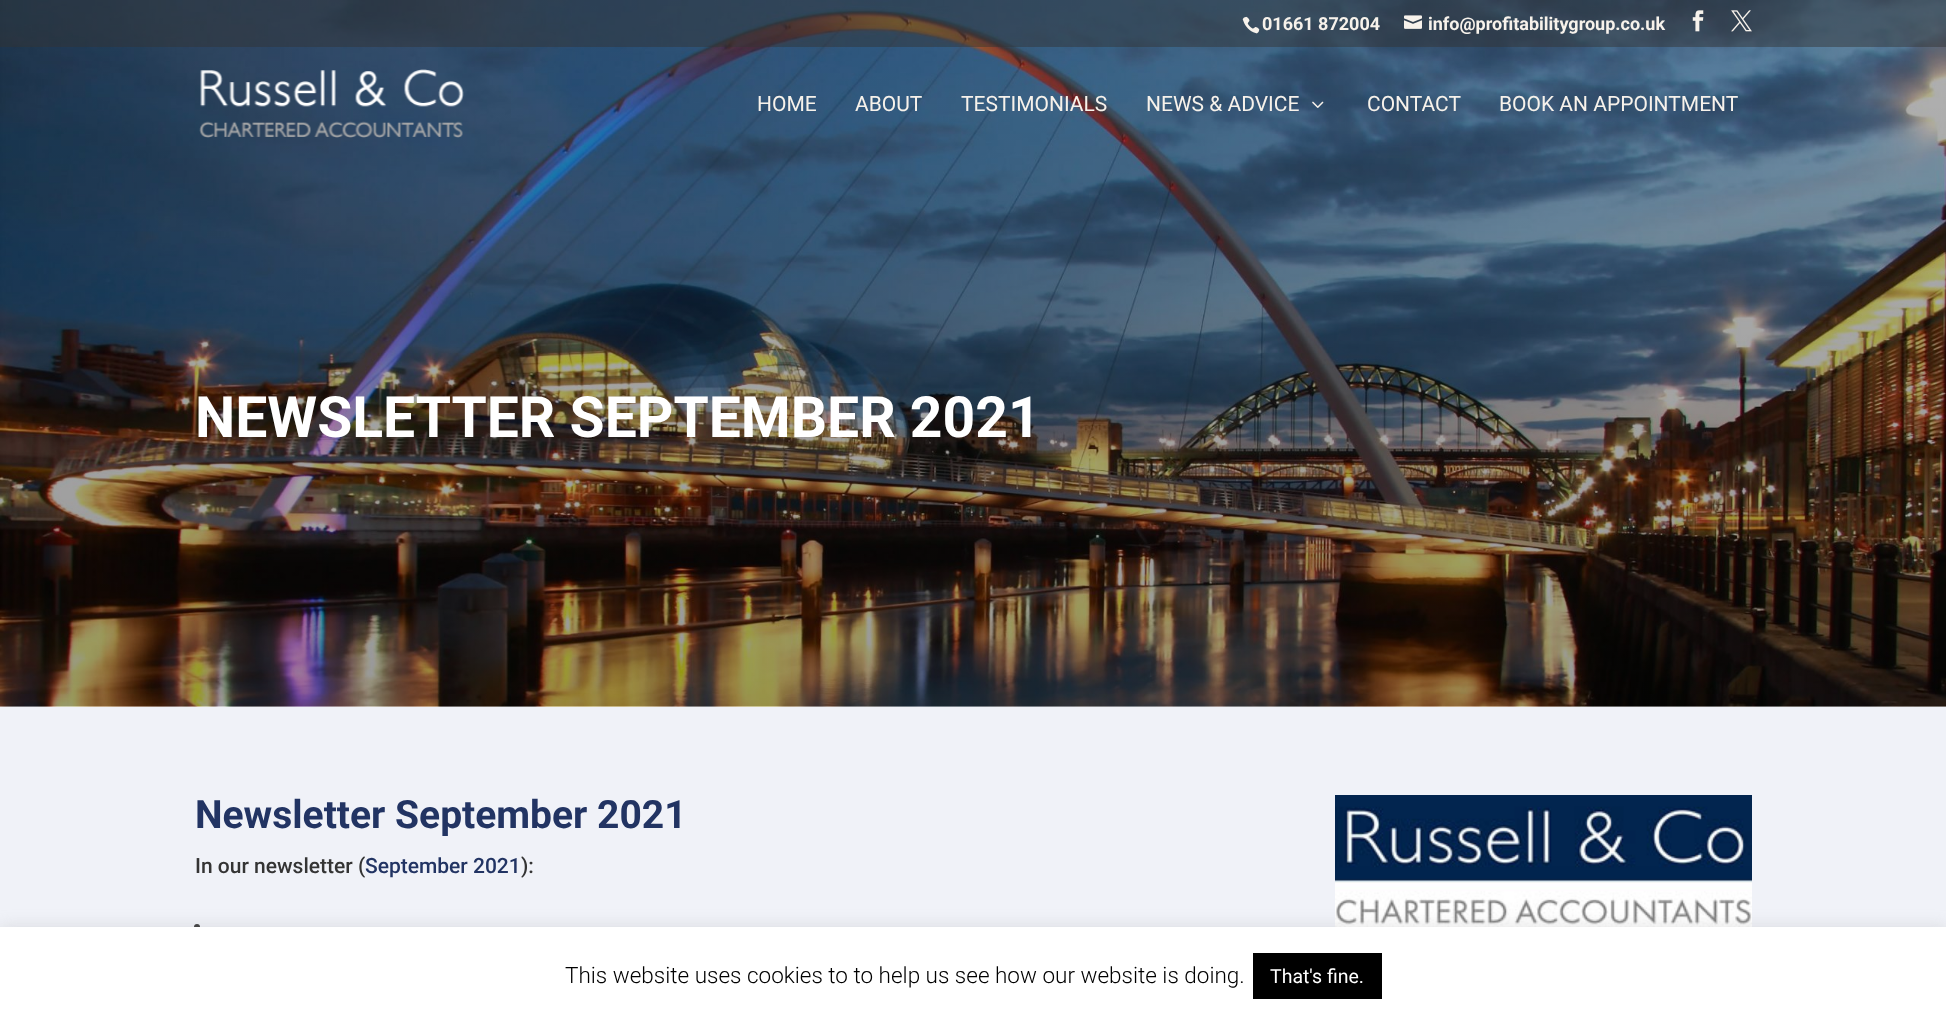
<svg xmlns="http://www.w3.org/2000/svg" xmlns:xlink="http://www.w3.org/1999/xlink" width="1946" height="1017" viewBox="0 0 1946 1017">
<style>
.cls-1{font:bold 18px Roboto;fill:#f7f2eb}
.cls-2{font:21px Roboto;fill:#f7f2eb}
.cls-3{font:bold 57px Roboto;fill:#ffffff}
.cls-4{font:bold 39px Roboto;fill:#223463}
.cls-5{font:500 21px Roboto;fill:#343434}
.cls-6{font:500 21px Roboto;fill:#223463}
.cls-7{font:300 22.5px Roboto;fill:#000000}
.cls-8{font:19.5px Roboto;fill:#ffffff}
</style>
<rect width="100%" height="100%" fill="#ffffff"/>
<image xlink:href="image6.png" x="0" y="0" width="1946" height="707"/>
<rect fill="#343434" fill-opacity="0.47" x="0" y="0" width="1946" height="47"/>
<image xlink:href="image0.png" x="1242" y="16" width="18" height="18"/>
<image xlink:href="image1.png" x="1404" y="15" width="18" height="14"/>
<image xlink:href="image2.png" x="1692" y="10" width="12" height="22"/>
<image xlink:href="image3.png" x="1731" y="10" width="21" height="22"/>
<image xlink:href="image4.png" x="199" y="69" width="265" height="69"/>
<image xlink:href="image5.png" x="1312" y="101" width="12" height="7"/>
<rect fill="#f0f2f8" x="0" y="707" width="1946" height="220"/>
<image xlink:href="image7.png" x="1335" y="795" width="417" height="132"/>
<circle fill="#343434" cx="197" cy="927" r="3"/>
<rect fill="#acabab" fill-opacity="0.3" filter="blur(7.5px)" x="0" y="926" width="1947" height="90"/>
<rect fill="#ffffff" x="0" y="927" width="1946" height="90"/>
<rect fill="#000000" x="1253" y="953" width="129" height="46"/>
<text class="cls-1" x="1262" y="30">01661 872004</text>
<text class="cls-1" x="1428" y="30">info@profitabilitygroup.co.uk</text>
<text class="cls-2" x="757" y="111">HOME</text>
<text class="cls-2" x="855" y="111">ABOUT</text>
<text class="cls-2" x="961" y="111">TESTIMONIALS</text>
<text class="cls-2" x="1146" y="111">NEWS &amp; ADVICE</text>
<text class="cls-2" x="1367" y="111">CONTACT</text>
<text class="cls-2" x="1499" y="111">BOOK AN APPOINTMENT</text>
<text class="cls-3" x="195" y="437">NEWSLETTER SEPTEMBER 2021</text>
<text class="cls-4" x="195" y="828">Newsletter September 2021</text>
<text class="cls-5" x="195" y="873">In our newsletter (</text>
<text class="cls-6" x="365" y="873">September 2021</text>
<text class="cls-5" x="521" y="873">):</text>
<text class="cls-7" x="565" y="983">This website uses cookies to to help us see how our website is doing.</text>
<text class="cls-8" x="1270" y="983">That's fine.</text>
</svg>
